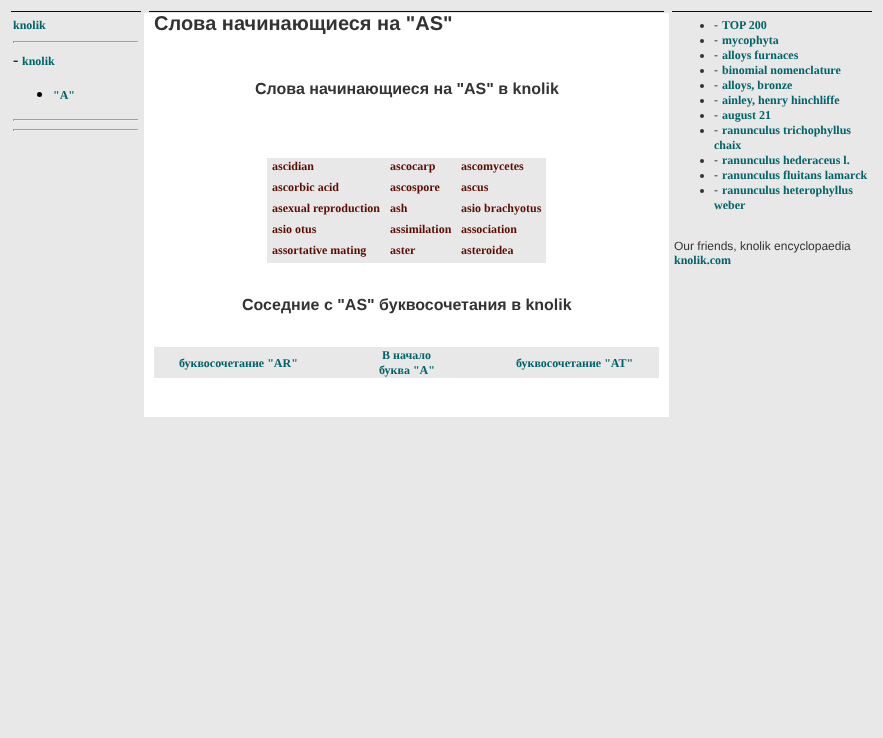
<svg xmlns="http://www.w3.org/2000/svg" xmlns:xlink="http://www.w3.org/1999/xlink" width="883" height="738" viewBox="0 0 883 738">
<style>
.cls-1{font:bold 12px Liberation Serif;fill:#006468}
.cls-2{font:16px Liberation Serif;fill:#000000}
.cls-3{font:bold 20px Liberation Sans;fill:#333333}
.cls-4{font:bold 16px Liberation Sans;fill:#333333}
.cls-5{font:bold 12px Liberation Serif;fill:#5a0d00}
.cls-6{font:12px Liberation Sans;fill:#333333}
</style>
<rect width="100%" height="100%" fill="#e8e8e8"/>
<rect fill="#0d0d0d" x="11" y="11" width="130" height="1"/>
<rect fill="#0d0d0d" x="149" y="11" width="515" height="1"/>
<rect fill="#0d0d0d" x="672" y="11" width="200" height="1"/>
<rect fill="#9f9f9f" x="13" y="41" width="126" height="1"/>
<rect fill="#eeeeee" x="138" y="41" width="1" height="2"/>
<rect fill="#eeeeee" x="13" y="42" width="126" height="1"/>
<rect fill="#9f9f9f" x="13" y="41" width="1" height="2"/>
<circle fill="#000000" cx="39.5" cy="94.5" r="2.5"/>
<rect fill="#9f9f9f" x="13" y="119" width="126" height="1"/>
<rect fill="#eeeeee" x="138" y="119" width="1" height="2"/>
<rect fill="#eeeeee" x="13" y="120" width="126" height="1"/>
<rect fill="#9f9f9f" x="13" y="119" width="1" height="2"/>
<rect fill="#9f9f9f" x="13" y="129" width="126" height="1"/>
<rect fill="#eeeeee" x="138" y="129" width="1" height="2"/>
<rect fill="#eeeeee" x="13" y="130" width="126" height="1"/>
<rect fill="#9f9f9f" x="13" y="129" width="1" height="2"/>
<rect fill="#ffffff" x="144" y="13" width="525" height="404"/>
<rect fill="#e8e8e8" x="267" y="158" width="279" height="21"/>
<rect fill="#e8e8e8" x="267" y="179" width="279" height="21"/>
<rect fill="#e8e8e8" x="267" y="200" width="279" height="21"/>
<rect fill="#e8e8e8" x="267" y="221" width="279" height="21"/>
<rect fill="#e8e8e8" x="267" y="242" width="279" height="21"/>
<rect fill="#e8e8e8" x="154" y="347" width="505" height="31"/>
<circle fill="#333333" cx="702" cy="26" r="2"/>
<circle fill="#333333" cx="702" cy="41" r="2"/>
<circle fill="#333333" cx="702" cy="56" r="2"/>
<circle fill="#333333" cx="702" cy="71" r="2"/>
<circle fill="#333333" cx="702" cy="86" r="2"/>
<circle fill="#333333" cx="702" cy="101" r="2"/>
<circle fill="#333333" cx="702" cy="116" r="2"/>
<circle fill="#333333" cx="702" cy="131" r="2"/>
<circle fill="#333333" cx="702" cy="161" r="2"/>
<circle fill="#333333" cx="702" cy="176" r="2"/>
<circle fill="#333333" cx="702" cy="191" r="2"/>
<text class="cls-1" x="13" y="29">knolik</text>
<text class="cls-2" x="13" y="65">-</text>
<text class="cls-1" x="22" y="65">knolik</text>
<text class="cls-1" x="53" y="99">"A"</text>
<text class="cls-3" x="154" y="30">Слова начинающиеся на "AS"</text>
<text class="cls-4" x="255" y="94">Слова начинающиеся на "AS" в knolik</text>
<text class="cls-5" x="272" y="170">ascidian</text>
<text class="cls-5" x="390" y="170">ascocarp</text>
<text class="cls-5" x="461" y="170">ascomycetes</text>
<text class="cls-5" x="272" y="191">ascorbic acid</text>
<text class="cls-5" x="390" y="191">ascospore</text>
<text class="cls-5" x="461" y="191">ascus</text>
<text class="cls-5" x="272" y="212">asexual reproduction</text>
<text class="cls-5" x="390" y="212">ash</text>
<text class="cls-5" x="461" y="212">asio brachyotus</text>
<text class="cls-5" x="272" y="233">asio otus</text>
<text class="cls-5" x="390" y="233">assimilation</text>
<text class="cls-5" x="461" y="233">association</text>
<text class="cls-5" x="272" y="254">assortative mating</text>
<text class="cls-5" x="390" y="254">aster</text>
<text class="cls-5" x="461" y="254">asteroidea</text>
<text class="cls-4" x="242" y="310">Соседние с "AS" буквосочетания в knolik</text>
<text class="cls-1" x="179" y="367">буквосочетание "AR"</text>
<text class="cls-1" x="382" y="359">В начало</text>
<text class="cls-1" x="379" y="374">буква "A"</text>
<text class="cls-1" x="516" y="367">буквосочетание "AT"</text>
<text class="cls-6" x="714" y="29">-</text>
<text class="cls-1" x="722" y="29">TOP 200</text>
<text class="cls-6" x="714" y="44">-</text>
<text class="cls-1" x="722" y="44">mycophyta</text>
<text class="cls-6" x="714" y="59">-</text>
<text class="cls-1" x="722" y="59">alloys furnaces</text>
<text class="cls-6" x="714" y="74">-</text>
<text class="cls-1" x="722" y="74">binomial nomenclature</text>
<text class="cls-6" x="714" y="89">-</text>
<text class="cls-1" x="722" y="89">alloys, bronze</text>
<text class="cls-6" x="714" y="104">-</text>
<text class="cls-1" x="722" y="104">ainley, henry hinchliffe</text>
<text class="cls-6" x="714" y="119">-</text>
<text class="cls-1" x="722" y="119">august 21</text>
<text class="cls-6" x="714" y="134">-</text>
<text class="cls-1" x="722" y="134">ranunculus trichophyllus</text>
<text class="cls-1" x="714" y="149">chaix</text>
<text class="cls-6" x="714" y="164">-</text>
<text class="cls-1" x="722" y="164">ranunculus hederaceus l.</text>
<text class="cls-6" x="714" y="179">-</text>
<text class="cls-1" x="722" y="179">ranunculus fluitans lamarck</text>
<text class="cls-6" x="714" y="194">-</text>
<text class="cls-1" x="722" y="194">ranunculus heterophyllus</text>
<text class="cls-1" x="714" y="209">weber</text>
<text class="cls-6" x="674" y="250">Our friends, knolik encyclopaedia</text>
<text class="cls-1" x="674" y="264">knolik.com</text>
</svg>
